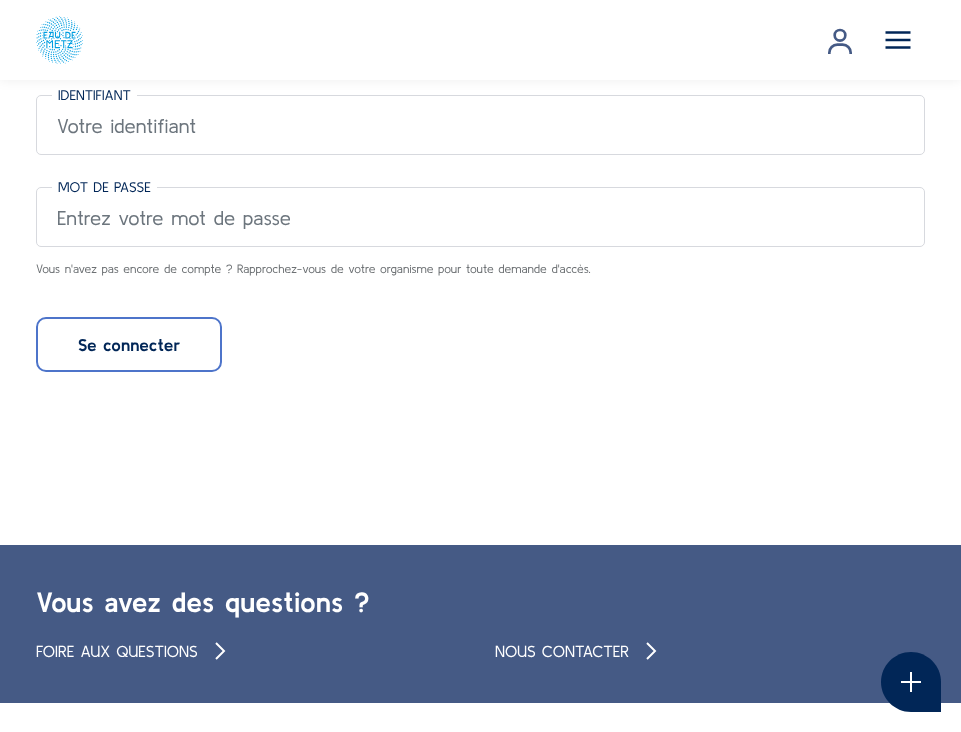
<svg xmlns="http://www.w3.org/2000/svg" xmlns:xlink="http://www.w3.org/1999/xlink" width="961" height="732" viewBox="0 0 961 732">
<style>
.cls-1{font:14px Kulim Park;fill:#012657}
.cls-2{font:20px Kulim Park;fill:#6c757d}
.cls-3{font:12px Kulim Park;fill:#6d7174}
.cls-4{font:bold 17px Kulim Park;fill:#012657}
.cls-5{font:bold 28px Kulim Park;fill:#ffffff}
.cls-6{font:16px Kulim Park;fill:#ffffff}
</style>
<rect width="100%" height="100%" fill="#ffffff"/>
<rect fill="none" stroke="#d7d9de" x="36.5" y="95.5" width="888" height="59" rx="4.5"/>
<rect fill="#ffffff" x="52" y="95" width="85" height="1"/>
<rect fill="#000000" fill-opacity="0.07" filter="blur(6px)" x="0" y="0" width="961" height="80"/>
<rect fill="#ffffff" x="0" y="0" width="961" height="80"/>
<image xlink:href="image0.png" x="36" y="16" width="47" height="48"/>
<image xlink:href="image1.png" x="828" y="28" width="24" height="26"/>
<image xlink:href="image2.png" x="885" y="31" width="26" height="18"/>
<rect fill="none" stroke="#d7d9de" x="36.5" y="187.5" width="888" height="59" rx="4.5"/>
<rect fill="#ffffff" x="52" y="187" width="105" height="1"/>
<rect fill="none" stroke="#4d74ca" stroke-width="2" x="37" y="318" width="184" height="53" rx="9"/>
<rect fill="#455a85" x="0" y="545" width="961" height="158"/>
<image xlink:href="image3.png" x="215" y="642" width="11" height="18"/>
<image xlink:href="image3.png" x="646" y="642" width="11" height="18"/>
<path fill="#012657" d="M911 652C927.5 652 941 665.5 941 682V712H911C894.5 712 881 698.5 881 682C881 665.5 894.5 652 911 652Z"/>
<image xlink:href="image4.png" x="901" y="672" width="20" height="20"/>
<text class="cls-1" x="58" y="100">IDENTIFIANT</text>
<text class="cls-2" x="57" y="133">Votre identifiant</text>
<text class="cls-1" x="58" y="192">MOT DE PASSE</text>
<text class="cls-2" x="57" y="225">Entrez votre mot de passe</text>
<text class="cls-3" x="36" y="273">Vous n'avez pas encore de compte ? Rapprochez-vous de votre organisme pour toute demande d'accès.</text>
<text class="cls-4" x="78" y="351">Se connecter</text>
<text class="cls-5" x="36" y="612">Vous avez des questions ?</text>
<text class="cls-6" x="36" y="657">FOIRE AUX QUESTIONS</text>
<text class="cls-6" x="495" y="657">NOUS CONTACTER</text>
</svg>
